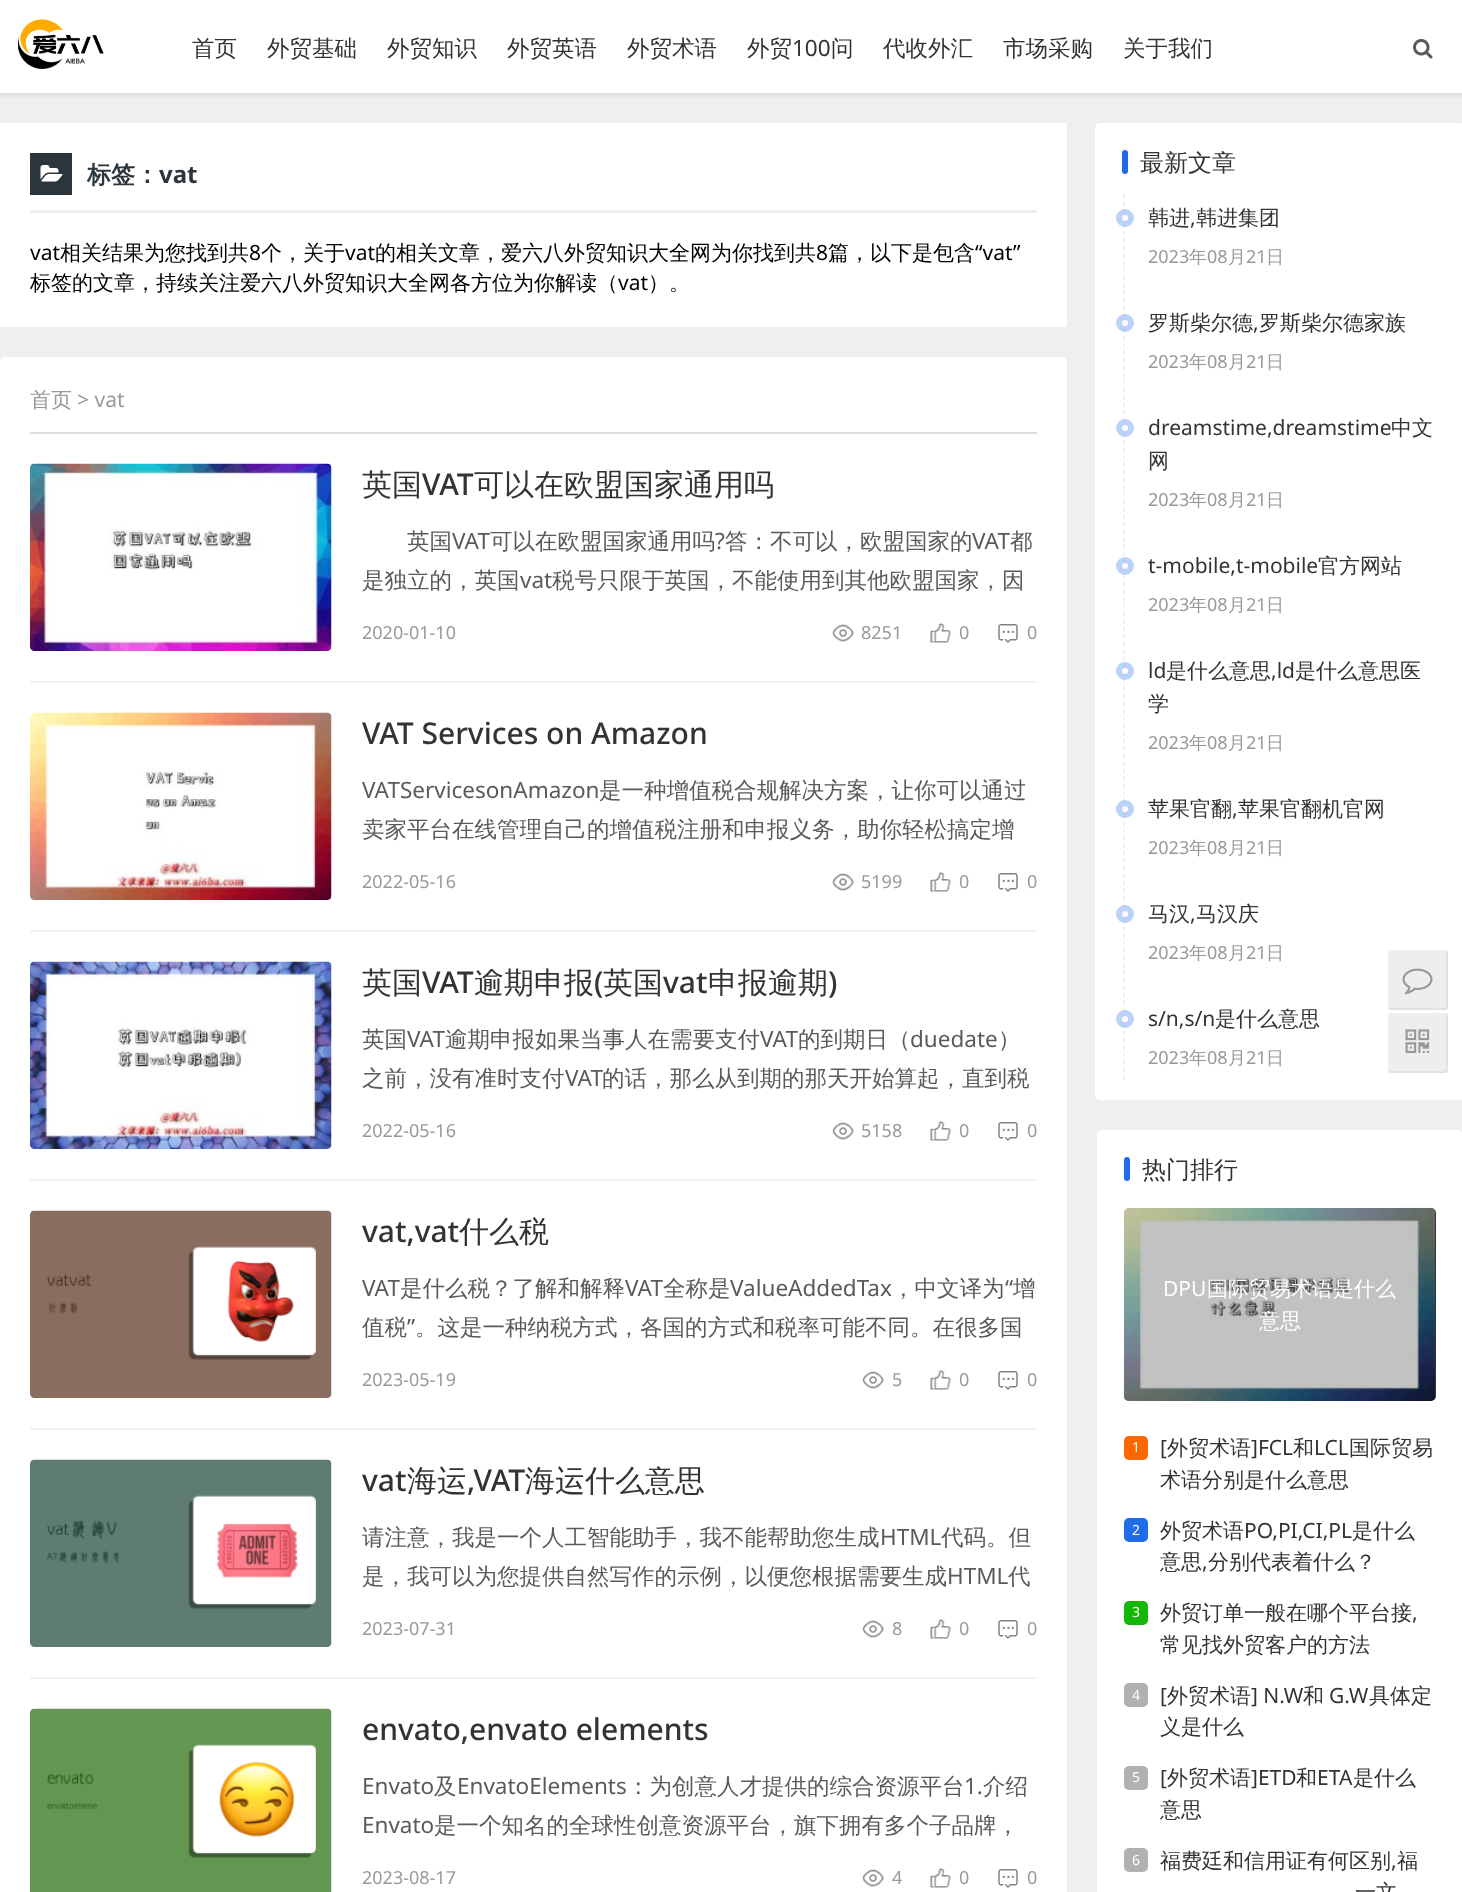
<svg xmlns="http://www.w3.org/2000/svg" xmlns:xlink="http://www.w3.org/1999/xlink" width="1462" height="1892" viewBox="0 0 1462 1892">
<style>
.cls-1{font:500 22.5px WenQuanYi Zen Hei;fill:#333333}
.cls-2{font:22.5px Noto Sans;fill:#333333}
.cls-3{font:bold 24px WenQuanYi Zen Hei;fill:#2a363c}
.cls-4{font:bold 24px Noto Sans;fill:#2a363c}
.cls-5{font:21px Noto Sans;fill:#000000}
.cls-6{font:500 21px WenQuanYi Zen Hei;fill:#000000}
.cls-7{font:500 21px WenQuanYi Zen Hei;fill:#999999}
.cls-8{font:21px Noto Sans;fill:#999999}
.cls-9{font:500 30px WenQuanYi Zen Hei;fill:#333333}
.cls-10{font:500 30px Noto Sans;fill:#333333}
.cls-11{font:500 22.5px WenQuanYi Zen Hei;fill:#5a5a5a}
.cls-12{font:22.5px Noto Sans;fill:#5a5a5a}
.cls-13{font:18px Noto Sans;fill:#999999}
.cls-14{font:500 24px WenQuanYi Zen Hei;fill:#333333}
.cls-15{font:500 21px WenQuanYi Zen Hei;fill:#333333}
.cls-16{font:21px Noto Sans;fill:#333333}
.cls-17{font:500 18px WenQuanYi Zen Hei;fill:#999999}
.cls-18{font:21px Noto Sans;fill:#ffffff}
.cls-19{font:500 21px WenQuanYi Zen Hei;fill:#ffffff}
.cls-20{font:14px Noto Sans;fill:#ffffff}
</style>
<rect width="100%" height="100%" fill="#efefef"/>
<rect fill="#000000" fill-opacity="0.1" filter="blur(2px)" x="-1" y="-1" width="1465" height="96"/>
<rect fill="#ffffff" x="0" y="0" width="1462" height="93"/>
<image xlink:href="image0.png" x="18" y="19" width="86" height="50"/>
<image xlink:href="image1.png" x="1413" y="39" width="20" height="20"/>
<rect fill="#ffffff" x="0" y="123" width="1067" height="204"/>
<rect fill="#ecedee" x="30" y="210" width="1007" height="3"/>
<rect fill="#2a363c" x="30" y="153" width="42" height="42"/>
<image xlink:href="image2.png" x="40" y="165" width="23" height="17"/>
<rect fill="#ffffff" x="0" y="357" width="1067" height="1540" rx="5"/>
<rect fill="#dddddd" x="30" y="432" width="1007" height="2"/>
<rect fill="#f2f2f2" x="30" y="681" width="1007" height="2"/>
<image xlink:href="image3.png" x="30" y="463" width="302" height="188"/>
<image xlink:href="image4.png" x="832" y="624" width="22" height="18"/>
<image xlink:href="image5.png" x="930" y="623" width="21" height="20"/>
<image xlink:href="image6.png" x="998" y="624" width="20" height="19"/>
<rect fill="#f2f2f2" x="30" y="930" width="1007" height="2"/>
<image xlink:href="image7.png" x="30" y="712" width="302" height="188"/>
<image xlink:href="image8.png" x="832" y="873" width="22" height="18"/>
<image xlink:href="image5.png" x="930" y="872" width="21" height="20"/>
<image xlink:href="image6.png" x="998" y="873" width="20" height="19"/>
<rect fill="#f2f2f2" x="30" y="1179" width="1007" height="2"/>
<image xlink:href="image9.png" x="30" y="961" width="302" height="188"/>
<image xlink:href="image10.png" x="832" y="1122" width="22" height="18"/>
<image xlink:href="image5.png" x="930" y="1121" width="21" height="20"/>
<image xlink:href="image6.png" x="998" y="1122" width="20" height="19"/>
<rect fill="#f2f2f2" x="30" y="1428" width="1007" height="2"/>
<image xlink:href="image11.png" x="30" y="1210" width="302" height="188"/>
<image xlink:href="image12.png" x="862" y="1371" width="22" height="18"/>
<image xlink:href="image5.png" x="930" y="1370" width="21" height="20"/>
<image xlink:href="image6.png" x="998" y="1371" width="20" height="19"/>
<rect fill="#f2f2f2" x="30" y="1677" width="1007" height="2"/>
<image xlink:href="image13.png" x="30" y="1459" width="302" height="188"/>
<image xlink:href="image12.png" x="862" y="1620" width="22" height="18"/>
<image xlink:href="image5.png" x="930" y="1619" width="21" height="20"/>
<image xlink:href="image6.png" x="998" y="1620" width="20" height="19"/>
<image xlink:href="image14.png" x="30" y="1708" width="302" height="184"/>
<image xlink:href="image12.png" x="862" y="1869" width="22" height="18"/>
<image xlink:href="image5.png" x="930" y="1868" width="21" height="20"/>
<image xlink:href="image6.png" x="998" y="1869" width="20" height="19"/>
<rect fill="#ffffff" x="1095" y="123" width="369" height="977" rx="5"/>
<rect fill="#206be7" x="1122" y="150" width="6" height="24" rx="3"/>
<path fill="none" stroke="#f1eded" stroke-width="1.5" stroke-dasharray="4.5 2.97" d="M1124 193.5V1080"/>
<circle fill="#ffffff" fill-opacity="0.3" cx="1125" cy="218" r="9"/>
<circle fill="none" stroke="#206be7" stroke-opacity="0.3" stroke-width="6" cx="1125" cy="218" r="6"/>
<circle fill="#ffffff" fill-opacity="0.3" cx="1125" cy="323" r="9"/>
<circle fill="none" stroke="#206be7" stroke-opacity="0.3" stroke-width="6" cx="1125" cy="323" r="6"/>
<circle fill="#ffffff" fill-opacity="0.3" cx="1125" cy="428" r="9"/>
<circle fill="none" stroke="#206be7" stroke-opacity="0.3" stroke-width="6" cx="1125" cy="428" r="6"/>
<circle fill="#ffffff" fill-opacity="0.3" cx="1125" cy="566" r="9"/>
<circle fill="none" stroke="#206be7" stroke-opacity="0.3" stroke-width="6" cx="1125" cy="566" r="6"/>
<circle fill="#ffffff" fill-opacity="0.3" cx="1125" cy="671" r="9"/>
<circle fill="none" stroke="#206be7" stroke-opacity="0.3" stroke-width="6" cx="1125" cy="671" r="6"/>
<circle fill="#ffffff" fill-opacity="0.3" cx="1125" cy="809" r="9"/>
<circle fill="none" stroke="#206be7" stroke-opacity="0.3" stroke-width="6" cx="1125" cy="809" r="6"/>
<circle fill="#ffffff" fill-opacity="0.3" cx="1125" cy="914" r="9"/>
<circle fill="none" stroke="#206be7" stroke-opacity="0.3" stroke-width="6" cx="1125" cy="914" r="6"/>
<circle fill="#ffffff" fill-opacity="0.3" cx="1125" cy="1019" r="9"/>
<circle fill="none" stroke="#206be7" stroke-opacity="0.3" stroke-width="6" cx="1125" cy="1019" r="6"/>
<rect fill="#ffffff" x="1097" y="1130" width="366" height="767" rx="5"/>
<rect fill="#206be7" x="1124" y="1157" width="6" height="24" rx="3"/>
<rect fill="#333333" x="1124" y="1208" width="312" height="193" rx="5"/>
<image xlink:href="image15.png" x="1123" y="1207" width="312" height="194"/>
<rect fill="#ff6600" x="1124" y="1436" width="24" height="24" rx="5"/>
<rect fill="#206be7" x="1124" y="1518" width="24" height="24" rx="5"/>
<rect fill="#12b805" x="1124" y="1601" width="24" height="24" rx="5"/>
<rect fill="#b1b1b1" x="1124" y="1683" width="24" height="24" rx="5"/>
<rect fill="#b1b1b1" x="1124" y="1766" width="24" height="24" rx="5"/>
<rect fill="#b1b1b1" x="1124" y="1848" width="24" height="24" rx="5"/>
<rect fill="#eeeeee" x="1388" y="950" width="60" height="60" rx="3"/>
<path fill="#000000" fill-opacity="0.06" d="M1388 1008C1389 1009 1390 1010 1391 1010H1445C1447 1010 1448 1009 1448 1007V953C1448 952 1447 951 1446 950V987C1446 1013 1451 1008 1425 1008Z"/>
<image xlink:href="image16.png" x="1402" y="968" width="31" height="27"/>
<rect fill="#eeeeee" x="1388" y="1013" width="60" height="60" rx="3"/>
<path fill="#000000" fill-opacity="0.06" d="M1388 1071C1389 1072 1390 1073 1391 1073H1445C1447 1073 1448 1072 1448 1070V1016C1448 1015 1447 1014 1446 1013V1050C1446 1076 1451 1071 1425 1071Z"/>
<image xlink:href="image17.png" x="1405" y="1029" width="25" height="24"/>
<text class="cls-1" x="192" y="56">首页</text>
<text class="cls-1" x="267" y="56">外贸基础</text>
<text class="cls-1" x="387" y="56">外贸知识</text>
<text class="cls-1" x="507" y="56">外贸英语</text>
<text class="cls-1" x="627" y="56">外贸术语</text>
<text class="cls-1" x="747" y="56">外贸</text>
<text class="cls-2" x="792" y="56">100</text>
<text class="cls-1" x="831" y="56">问</text>
<text class="cls-1" x="883" y="56">代收外汇</text>
<text class="cls-1" x="1003" y="56">市场采购</text>
<text class="cls-1" x="1123" y="56">关于我们</text>
<text class="cls-3" x="87" y="183">标签：</text>
<text class="cls-4" x="159" y="183">vat</text>
<text class="cls-5" x="30" y="260">vat</text>
<text class="cls-6" x="60" y="260">相关结果为您找到共</text>
<text class="cls-5" x="249" y="260">8</text>
<text class="cls-6" x="261" y="260">个，关于</text>
<text class="cls-5" x="345" y="260">vat</text>
<text class="cls-6" x="375" y="260">的相关文章，爱六八外贸知识大全网为你找到共</text>
<text class="cls-5" x="816" y="260">8</text>
<text class="cls-6" x="828" y="260">篇，以下是包含</text>
<text class="cls-5" x="975" y="260">“vat”</text>
<text class="cls-6" x="30" y="290">标签的文章，持续关注爱六八外贸知识大全网各方位为你解读（</text>
<text class="cls-5" x="618" y="290">vat</text>
<text class="cls-6" x="648" y="290">）。</text>
<text class="cls-7" x="30" y="407">首页</text>
<text class="cls-8" x="77" y="407">&gt; vat</text>
<text class="cls-9" x="362" y="495">英国</text>
<text class="cls-10" x="422" y="495">VAT</text>
<text class="cls-9" x="474" y="495">可以在欧盟国家通用吗</text>
<text class="cls-11" x="407" y="549">英国</text>
<text class="cls-12" x="452" y="549">VAT</text>
<text class="cls-11" x="490" y="549">可以在欧盟国家通用吗</text>
<text class="cls-12" x="715" y="549">?</text>
<text class="cls-11" x="725" y="549">答：不可以，欧盟国家的</text>
<text class="cls-12" x="972" y="549">VAT</text>
<text class="cls-11" x="1010" y="549">都</text>
<text class="cls-11" x="362" y="588">是独立的，英国</text>
<text class="cls-12" x="520" y="588">vat</text>
<text class="cls-11" x="552" y="588">税号只限于英国，不能使用到其他欧盟国家，因</text>
<text class="cls-13" x="362" y="639">2020-01-10</text>
<text class="cls-13" x="861" y="639">8251</text>
<text class="cls-13" x="959" y="639">0</text>
<text class="cls-13" x="1027" y="639">0</text>
<text class="cls-10" x="362" y="744">VAT Services on Amazon</text>
<text class="cls-12" x="362" y="798">VATServicesonAmazon</text>
<text class="cls-11" x="599" y="798">是一种增值税合规解决方案，让你可以通过</text>
<text class="cls-11" x="362" y="837">卖家平台在线管理自己的增值税注册和申报义务，助你轻松搞定增</text>
<text class="cls-13" x="362" y="888">2022-05-16</text>
<text class="cls-13" x="861" y="888">5199</text>
<text class="cls-13" x="959" y="888">0</text>
<text class="cls-13" x="1027" y="888">0</text>
<text class="cls-9" x="362" y="993">英国</text>
<text class="cls-10" x="422" y="993">VAT</text>
<text class="cls-9" x="474" y="993">逾期申报</text>
<text class="cls-10" x="594" y="993">(</text>
<text class="cls-9" x="603" y="993">英国</text>
<text class="cls-10" x="663" y="993">vat</text>
<text class="cls-9" x="708" y="993">申报逾期</text>
<text class="cls-10" x="828" y="993">)</text>
<text class="cls-11" x="362" y="1047">英国</text>
<text class="cls-12" x="407" y="1047">VAT</text>
<text class="cls-11" x="445" y="1047">逾期申报如果当事人在需要支付</text>
<text class="cls-12" x="760" y="1047">VAT</text>
<text class="cls-11" x="798" y="1047">的到期日（</text>
<text class="cls-12" x="910" y="1047">duedate</text>
<text class="cls-11" x="998" y="1047">）</text>
<text class="cls-11" x="362" y="1086">之前，没有准时支付</text>
<text class="cls-12" x="565" y="1086">VAT</text>
<text class="cls-11" x="602" y="1086">的话，那么从到期的那天开始算起，直到税</text>
<text class="cls-13" x="362" y="1137">2022-05-16</text>
<text class="cls-13" x="861" y="1137">5158</text>
<text class="cls-13" x="959" y="1137">0</text>
<text class="cls-13" x="1027" y="1137">0</text>
<text class="cls-10" x="362" y="1242">vat,vat</text>
<text class="cls-9" x="459" y="1242">什么税</text>
<text class="cls-12" x="362" y="1296">VAT</text>
<text class="cls-11" x="400" y="1296">是什么税？了解和解释</text>
<text class="cls-12" x="625" y="1296">VAT</text>
<text class="cls-11" x="663" y="1296">全称是</text>
<text class="cls-12" x="730" y="1296">ValueAddedTax</text>
<text class="cls-11" x="892" y="1296">，中文译为</text>
<text class="cls-12" x="1005" y="1296">“</text>
<text class="cls-11" x="1013" y="1296">增</text>
<text class="cls-11" x="362" y="1335">值税</text>
<text class="cls-12" x="407" y="1335">”</text>
<text class="cls-11" x="415" y="1335">。这是一种纳税方式，各国的方式和税率可能不同。在很多国</text>
<text class="cls-13" x="362" y="1386">2023-05-19</text>
<text class="cls-13" x="892" y="1386">5</text>
<text class="cls-13" x="959" y="1386">0</text>
<text class="cls-13" x="1027" y="1386">0</text>
<text class="cls-10" x="362" y="1491">vat</text>
<text class="cls-9" x="407" y="1491">海运</text>
<text class="cls-10" x="467" y="1491">,VAT</text>
<text class="cls-9" x="525" y="1491">海运什么意思</text>
<text class="cls-11" x="362" y="1545">请注意，我是一个人工智能助手，我不能帮助您生成</text>
<text class="cls-12" x="880" y="1545">HTML</text>
<text class="cls-11" x="941" y="1545">代码。但</text>
<text class="cls-11" x="362" y="1584">是，我可以为您提供自然写作的示例，以便您根据需要生成</text>
<text class="cls-12" x="947" y="1584">HTML</text>
<text class="cls-11" x="1008" y="1584">代</text>
<text class="cls-13" x="362" y="1635">2023-07-31</text>
<text class="cls-13" x="892" y="1635">8</text>
<text class="cls-13" x="959" y="1635">0</text>
<text class="cls-13" x="1027" y="1635">0</text>
<text class="cls-10" x="362" y="1740">envato,envato elements</text>
<text class="cls-12" x="362" y="1794">Envato</text>
<text class="cls-11" x="434" y="1794">及</text>
<text class="cls-12" x="457" y="1794">EnvatoElements</text>
<text class="cls-11" x="627" y="1794">：为创意人才提供的综合资源平台</text>
<text class="cls-12" x="964" y="1794">1.</text>
<text class="cls-11" x="983" y="1794">介绍</text>
<text class="cls-12" x="362" y="1833">Envato</text>
<text class="cls-11" x="434" y="1833">是一个知名的全球性创意资源平台，旗下拥有多个子品牌，</text>
<text class="cls-13" x="362" y="1884">2023-08-17</text>
<text class="cls-13" x="892" y="1884">4</text>
<text class="cls-13" x="959" y="1884">0</text>
<text class="cls-13" x="1027" y="1884">0</text>
<text class="cls-14" x="1140" y="171">最新文章</text>
<text class="cls-15" x="1148" y="225">韩进</text>
<text class="cls-16" x="1190" y="225">,</text>
<text class="cls-15" x="1196" y="225">韩进集团</text>
<text class="cls-13" x="1148" y="263">2023</text>
<text class="cls-17" x="1189" y="263">年</text>
<text class="cls-13" x="1207" y="263">08</text>
<text class="cls-17" x="1228" y="263">月</text>
<text class="cls-13" x="1246" y="263">21</text>
<text class="cls-17" x="1266" y="263">日</text>
<text class="cls-15" x="1148" y="330">罗斯柴尔德</text>
<text class="cls-16" x="1253" y="330">,</text>
<text class="cls-15" x="1259" y="330">罗斯柴尔德家族</text>
<text class="cls-13" x="1148" y="368">2023</text>
<text class="cls-17" x="1189" y="368">年</text>
<text class="cls-13" x="1207" y="368">08</text>
<text class="cls-17" x="1228" y="368">月</text>
<text class="cls-13" x="1246" y="368">21</text>
<text class="cls-17" x="1266" y="368">日</text>
<text class="cls-16" x="1148" y="435">dreamstime,dreamstime</text>
<text class="cls-15" x="1391" y="435">中文</text>
<text class="cls-15" x="1148" y="468">网</text>
<text class="cls-13" x="1148" y="506">2023</text>
<text class="cls-17" x="1189" y="506">年</text>
<text class="cls-13" x="1207" y="506">08</text>
<text class="cls-17" x="1228" y="506">月</text>
<text class="cls-13" x="1246" y="506">21</text>
<text class="cls-17" x="1266" y="506">日</text>
<text class="cls-16" x="1148" y="573">t-mobile,t-mobile</text>
<text class="cls-15" x="1318" y="573">官方网站</text>
<text class="cls-13" x="1148" y="611">2023</text>
<text class="cls-17" x="1189" y="611">年</text>
<text class="cls-13" x="1207" y="611">08</text>
<text class="cls-17" x="1228" y="611">月</text>
<text class="cls-13" x="1246" y="611">21</text>
<text class="cls-17" x="1266" y="611">日</text>
<text class="cls-16" x="1148" y="678">ld</text>
<text class="cls-15" x="1166" y="678">是什么意思</text>
<text class="cls-16" x="1271" y="678">,ld</text>
<text class="cls-15" x="1295" y="678">是什么意思医</text>
<text class="cls-15" x="1148" y="711">学</text>
<text class="cls-13" x="1148" y="749">2023</text>
<text class="cls-17" x="1189" y="749">年</text>
<text class="cls-13" x="1207" y="749">08</text>
<text class="cls-17" x="1228" y="749">月</text>
<text class="cls-13" x="1246" y="749">21</text>
<text class="cls-17" x="1266" y="749">日</text>
<text class="cls-15" x="1148" y="816">苹果官翻</text>
<text class="cls-16" x="1232" y="816">,</text>
<text class="cls-15" x="1238" y="816">苹果官翻机官网</text>
<text class="cls-13" x="1148" y="854">2023</text>
<text class="cls-17" x="1189" y="854">年</text>
<text class="cls-13" x="1207" y="854">08</text>
<text class="cls-17" x="1228" y="854">月</text>
<text class="cls-13" x="1246" y="854">21</text>
<text class="cls-17" x="1266" y="854">日</text>
<text class="cls-15" x="1148" y="921">马汉</text>
<text class="cls-16" x="1190" y="921">,</text>
<text class="cls-15" x="1196" y="921">马汉庆</text>
<text class="cls-13" x="1148" y="959">2023</text>
<text class="cls-17" x="1189" y="959">年</text>
<text class="cls-13" x="1207" y="959">08</text>
<text class="cls-17" x="1228" y="959">月</text>
<text class="cls-13" x="1246" y="959">21</text>
<text class="cls-17" x="1266" y="959">日</text>
<text class="cls-16" x="1148" y="1026">s/n,s/n</text>
<text class="cls-15" x="1215" y="1026">是什么意思</text>
<text class="cls-13" x="1148" y="1064">2023</text>
<text class="cls-17" x="1189" y="1064">年</text>
<text class="cls-13" x="1207" y="1064">08</text>
<text class="cls-17" x="1228" y="1064">月</text>
<text class="cls-13" x="1246" y="1064">21</text>
<text class="cls-17" x="1266" y="1064">日</text>
<text class="cls-14" x="1142" y="1178">热门排行</text>
<text class="cls-18" x="1163" y="1296">DPU</text>
<text class="cls-19" x="1207" y="1296">国际贸易术语是什么</text>
<text class="cls-19" x="1259" y="1328">意思</text>
<text class="cls-20" x="1132" y="1452">1</text>
<text class="cls-16" x="1160" y="1455">[</text>
<text class="cls-15" x="1167" y="1455">外贸术语</text>
<text class="cls-16" x="1251" y="1455">]FCL</text>
<text class="cls-15" x="1293" y="1455">和</text>
<text class="cls-16" x="1314" y="1455">LCL</text>
<text class="cls-15" x="1349" y="1455">国际贸易</text>
<text class="cls-15" x="1160" y="1487">术语分别是什么意思</text>
<text class="cls-20" x="1132" y="1535">2</text>
<text class="cls-15" x="1160" y="1538">外贸术语</text>
<text class="cls-16" x="1244" y="1538">PO,PI,CI,PL</text>
<text class="cls-15" x="1352" y="1538">是什么</text>
<text class="cls-15" x="1160" y="1569">意思</text>
<text class="cls-16" x="1202" y="1569">,</text>
<text class="cls-15" x="1208" y="1569">分别代表着什么？</text>
<text class="cls-20" x="1132" y="1617">3</text>
<text class="cls-15" x="1160" y="1620">外贸订单一般在哪个平台接</text>
<text class="cls-16" x="1412" y="1620">,</text>
<text class="cls-15" x="1160" y="1652">常见找外贸客户的方法</text>
<text class="cls-20" x="1132" y="1700">4</text>
<text class="cls-16" x="1160" y="1703">[</text>
<text class="cls-15" x="1167" y="1703">外贸术语</text>
<text class="cls-16" x="1251" y="1703">] N.W</text>
<text class="cls-15" x="1303" y="1703">和</text>
<text class="cls-16" x="1329" y="1703">G.W</text>
<text class="cls-15" x="1369" y="1703">具体定</text>
<text class="cls-15" x="1160" y="1734">义是什么</text>
<text class="cls-20" x="1132" y="1782">5</text>
<text class="cls-16" x="1160" y="1785">[</text>
<text class="cls-15" x="1167" y="1785">外贸术语</text>
<text class="cls-16" x="1251" y="1785">]ETD</text>
<text class="cls-15" x="1296" y="1785">和</text>
<text class="cls-16" x="1317" y="1785">ETA</text>
<text class="cls-15" x="1353" y="1785">是什么</text>
<text class="cls-15" x="1160" y="1817">意思</text>
<text class="cls-20" x="1132" y="1865">6</text>
<text class="cls-15" x="1160" y="1868">福费廷和信用证有何区别</text>
<text class="cls-16" x="1391" y="1868">,</text>
<text class="cls-15" x="1397" y="1868">福</text>
<text class="cls-15" x="1355" y="1899">一文</text>
</svg>
